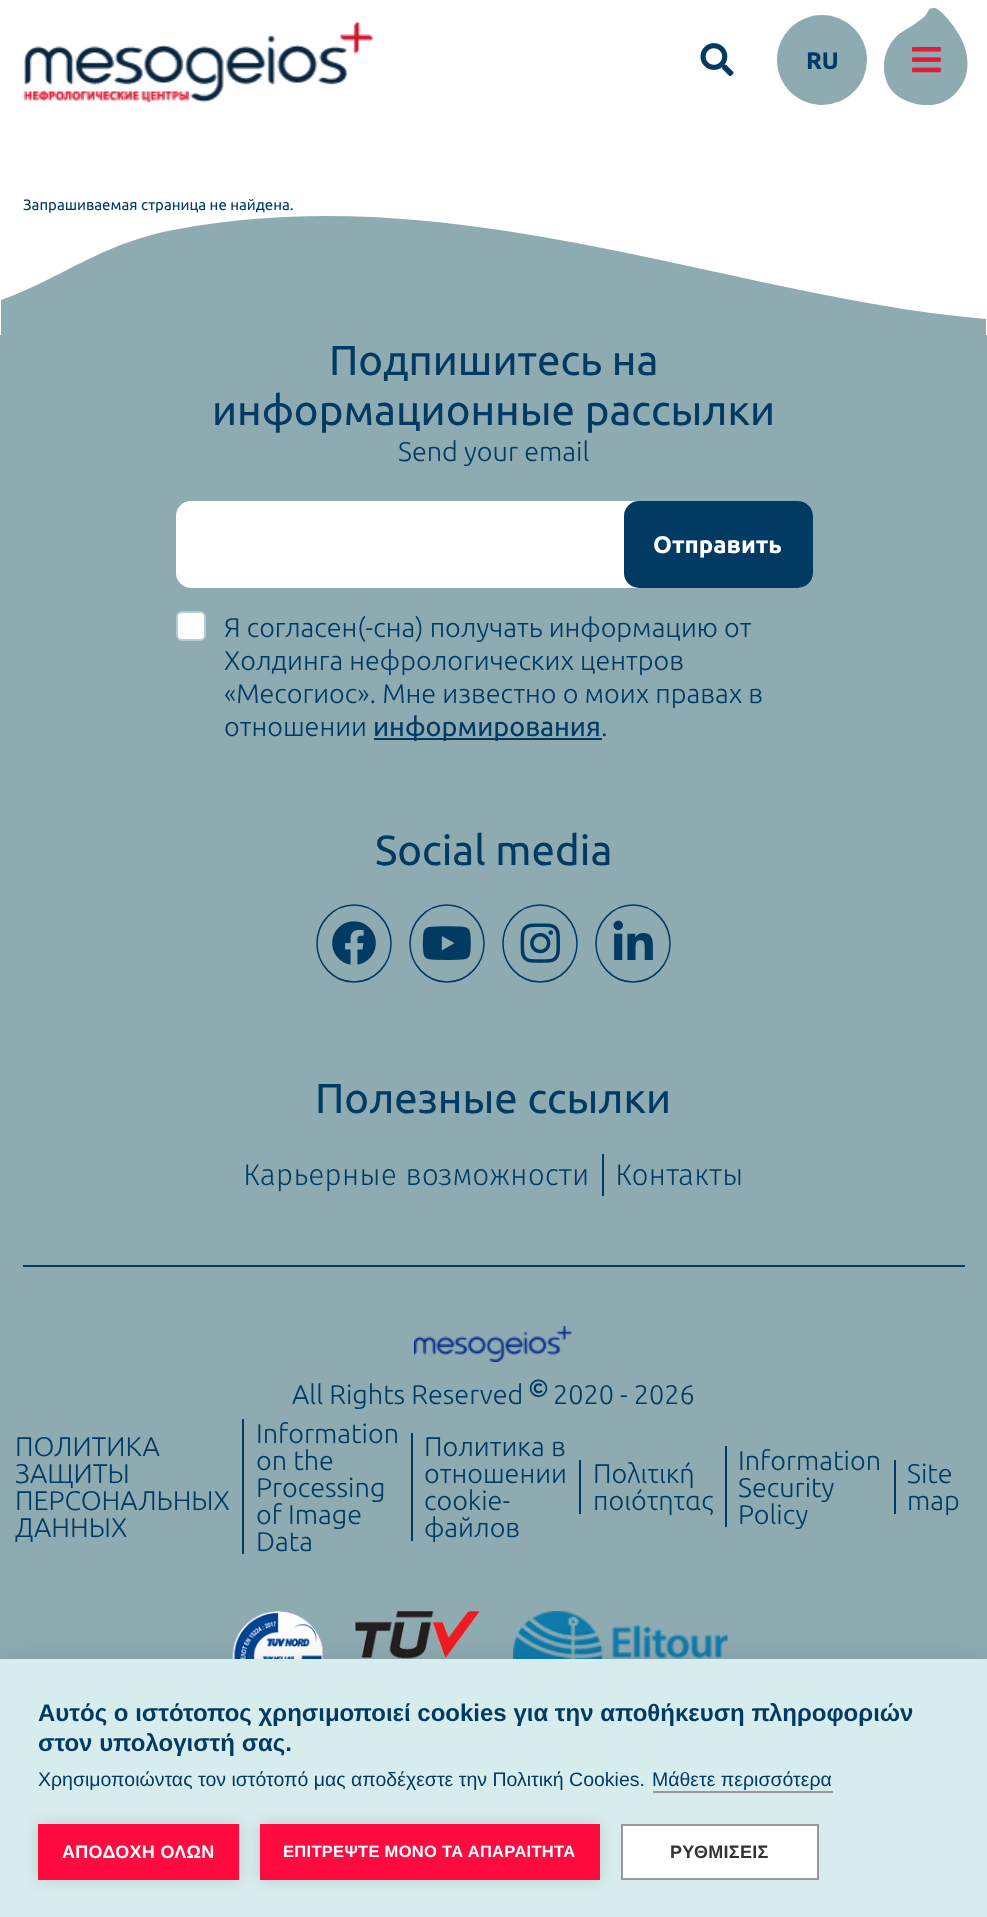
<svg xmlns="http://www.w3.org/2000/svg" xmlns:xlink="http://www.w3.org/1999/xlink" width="987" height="1917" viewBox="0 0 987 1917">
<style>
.cls-1{font:bold 24px Ubuntu;fill:#013a63}
.cls-2{font:15px Ubuntu;fill:#013a63}
.cls-3{font:42px Ubuntu;fill:#013a63}
.cls-4{font:300 27px Ubuntu;fill:#013a63}
.cls-5{font:bold 24px Ubuntu;fill:#ffffff}
.cls-6{font:27px Ubuntu;fill:#013a63}
.cls-7{font:300 30px Fira Sans;fill:#013a63}
.cls-8{font:bold 24px Liberation Sans;fill:#013a63}
.cls-9{font:19.5px Liberation Sans;fill:#013a63}
.cls-10{font:bold 18px Liberation Sans;letter-spacing:0.3px;fill:#ffffff}
.cls-11{font:bold 16.5px Liberation Sans;letter-spacing:0.3px;fill:#ffffff}
.cls-12{font:bold 18px Liberation Sans;letter-spacing:0.3px;fill:#333333}
</style>
<defs>
<clipPath id="clip1"><rect x="884" y="8" width="84" height="97"/></clipPath>
</defs>
<rect width="100%" height="100%" fill="#ffffff"/>
<image xlink:href="image0.png" x="23" y="22" width="351" height="81"/>
<image xlink:href="image1.png" x="700" y="43" width="34" height="34"/>
<circle fill="#8fabb2" cx="822" cy="60" r="45"/>
<g clip-path="url(#clip1)">
<path fill="#8fabb2" fill-rule="evenodd" d="M963 83C972 66 966 45 958 33C951 21 938 7 934 8C927 8 930 11 924 17C918 22 912 26 902 32C892 38 880 56 885 76C889 97 909 102 916 104C931 107 950 106 963 83Z"/>
</g>
<image xlink:href="image2.png" x="912" y="47" width="29" height="26"/>
<path fill="#8fabb2" fill-rule="evenodd" d="M986 453H1V300C58 280 100 244 173 230C459 175 734 298 986 319Z"/>
<rect fill="#8fabb2" x="0" y="335" width="987" height="1324"/>
<rect fill="#ffffff" x="176" y="501" width="637" height="87" rx="15"/>
<rect fill="#013a63" x="624" y="501" width="189" height="87" rx="15"/>
<rect fill="#ffffff" stroke="#b3ced3" stroke-width="2" x="177" y="612" width="28" height="28" rx="5"/>
<rect fill="#013a63" x="374" y="738" width="228" height="2"/>
<path fill="none" stroke="#013a63" stroke-width="1.5" d="M354 905C374.5 905 391 922.5 391 943.5C391 964.5 374.5 982 354 982C333.5 982 317 964.5 317 943.5C317 922.5 333.5 905 354 905Z"/>
<image xlink:href="image3.png" x="332" y="921" width="44" height="44"/>
<path fill="none" stroke="#013a63" stroke-width="1.5" d="M447 905C467.5 905 484 922.5 484 943.5C484 964.5 467.5 982 447 982C426.5 982 410 964.5 410 943.5C410 922.5 426.5 905 447 905Z"/>
<image xlink:href="image4.png" x="422" y="926" width="49" height="34"/>
<path fill="none" stroke="#013a63" stroke-width="1.5" d="M540 905C560.5 905 577 922.5 577 943.5C577 964.5 560.5 982 540 982C519.5 982 503 964.5 503 943.5C503 922.5 519.5 905 540 905Z"/>
<image xlink:href="image5.png" x="520" y="923" width="40" height="40"/>
<path fill="none" stroke="#013a63" stroke-width="1.5" d="M633 905C653.5 905 670 922.5 670 943.5C670 964.5 653.5 982 633 982C612.5 982 596 964.5 596 943.5C596 922.5 612.5 905 633 905Z"/>
<image xlink:href="image6.png" x="613" y="920" width="40" height="40"/>
<rect fill="#013a63" x="602" y="1154" width="2" height="42"/>
<rect fill="#013a63" x="23" y="1265" width="942" height="2"/>
<image xlink:href="image7.png" x="414" y="1326" width="158" height="36"/>
<image xlink:href="image8.png" x="529" y="1379" width="19" height="18"/>
<rect fill="#013a63" x="242" y="1419" width="2" height="135"/>
<rect fill="#013a63" x="411" y="1433" width="2" height="108"/>
<rect fill="#013a63" x="579" y="1460" width="2" height="54"/>
<rect fill="#013a63" x="725" y="1446" width="2" height="81"/>
<rect fill="#013a63" x="894" y="1460" width="2" height="54"/>
<image xlink:href="image9.png" x="232" y="1611" width="91" height="48"/>
<image xlink:href="image10.png" x="355" y="1611" width="125" height="48"/>
<image xlink:href="image11.png" x="513" y="1611" width="215" height="48"/>
<rect fill="#000000" fill-opacity="0.1" filter="blur(15px)" x="0" y="1659" width="987" height="258"/>
<rect fill="#d7eced" x="0" y="1659" width="987" height="258"/>
<rect fill="#999999" x="653" y="1791" width="180" height="2"/>
<rect fill="#000000" fill-opacity="0.12" filter="blur(7.5px)" x="38" y="1824" width="201" height="56"/>
<rect fill="#ff0b40" x="38" y="1824" width="201" height="56"/>
<rect fill="#000000" fill-opacity="0.12" filter="blur(7.5px)" x="260" y="1824" width="340" height="56"/>
<rect fill="#ff0b40" x="260" y="1824" width="340" height="56"/>
<rect fill="#ffffff" stroke="#999999" stroke-width="2" x="622" y="1825" width="196" height="54"/>
<text class="cls-1" x="806" y="69">RU</text>
<text class="cls-2" x="23" y="210">Запрашиваемая страница не найдена.</text>
<text class="cls-3" x="329" y="375">Подпишитесь на</text>
<text class="cls-3" x="212" y="425">информационные рассылки</text>
<text class="cls-4" x="398" y="461">Send your email</text>
<text class="cls-5" x="653" y="553">Отправить</text>
<text class="cls-4"><tspan x="224" y="637">Я согласен(-сна) получать информацию от</tspan><tspan x="224" y="670">Холдинга нефрологических центров</tspan><tspan x="224" y="703">«Месогиос». Мне известно о моих правах в</tspan><tspan x="224" y="736">отношении</tspan></text>
<text class="cls-6" x="373" y="736">информирования</text>
<text class="cls-4" x="601" y="736">.</text>
<text class="cls-3" x="375" y="865">Social media</text>
<text class="cls-3" x="315" y="1113">Полезные ссылки</text>
<text class="cls-7" x="243" y="1185">Карьерные возможности</text>
<text class="cls-7" x="615" y="1185">Контакты</text>
<text class="cls-4" x="292" y="1404">All Rights Reserved</text>
<text class="cls-4" x="553" y="1404">2020 - 2026</text>
<text class="cls-4"><tspan x="15" y="1456">ПОЛИТИКА</tspan><tspan x="15" y="1483">ЗАЩИТЫ</tspan><tspan x="15" y="1510">ПЕРСОНАЛЬНЫХ</tspan><tspan x="15" y="1537">ДАННЫХ</tspan></text>
<text class="cls-4"><tspan x="256" y="1443">Information</tspan><tspan x="256" y="1470">on the</tspan><tspan x="256" y="1497">Processing</tspan><tspan x="256" y="1524">of Image</tspan><tspan x="256" y="1551">Data</tspan></text>
<text class="cls-4"><tspan x="424" y="1456">Политика в</tspan><tspan x="424" y="1483">отношении</tspan><tspan x="424" y="1510">cookie-</tspan><tspan x="424" y="1537">файлов</tspan></text>
<text class="cls-4"><tspan x="593" y="1483">Πολιτική</tspan><tspan x="593" y="1510">ποιότητας</tspan></text>
<text class="cls-4"><tspan x="738" y="1470">Information</tspan><tspan x="738" y="1497">Security</tspan><tspan x="738" y="1524">Policy</tspan></text>
<text class="cls-4"><tspan x="907" y="1483">Site</tspan><tspan x="907" y="1510">map</tspan></text>
<text class="cls-8"><tspan x="38" y="1721">Αυτός ο ιστότοπος χρησιμοποιεί cookies για την αποθήκευση πληροφοριών</tspan><tspan x="38" y="1751">στον υπολογιστή σας.</tspan></text>
<text class="cls-9" x="38" y="1786">Χρησιμοποιώντας τον ιστότοπό μας αποδέχεστε την Πολιτική Cookies.</text>
<text class="cls-9" x="652" y="1786">Μάθετε περισσότερα</text>
<text class="cls-10" x="62" y="1858">ΑΠΟΔΟΧΗ ΟΛΩΝ</text>
<text class="cls-11" x="283" y="1857">ΕΠΙΤΡΕΨΤΕ ΜΟΝΟ ΤΑ ΑΠΑΡΑΙΤΗΤΑ</text>
<text class="cls-12" x="670" y="1858">ΡΥΘΜΙΣΕΙΣ</text>
</svg>
